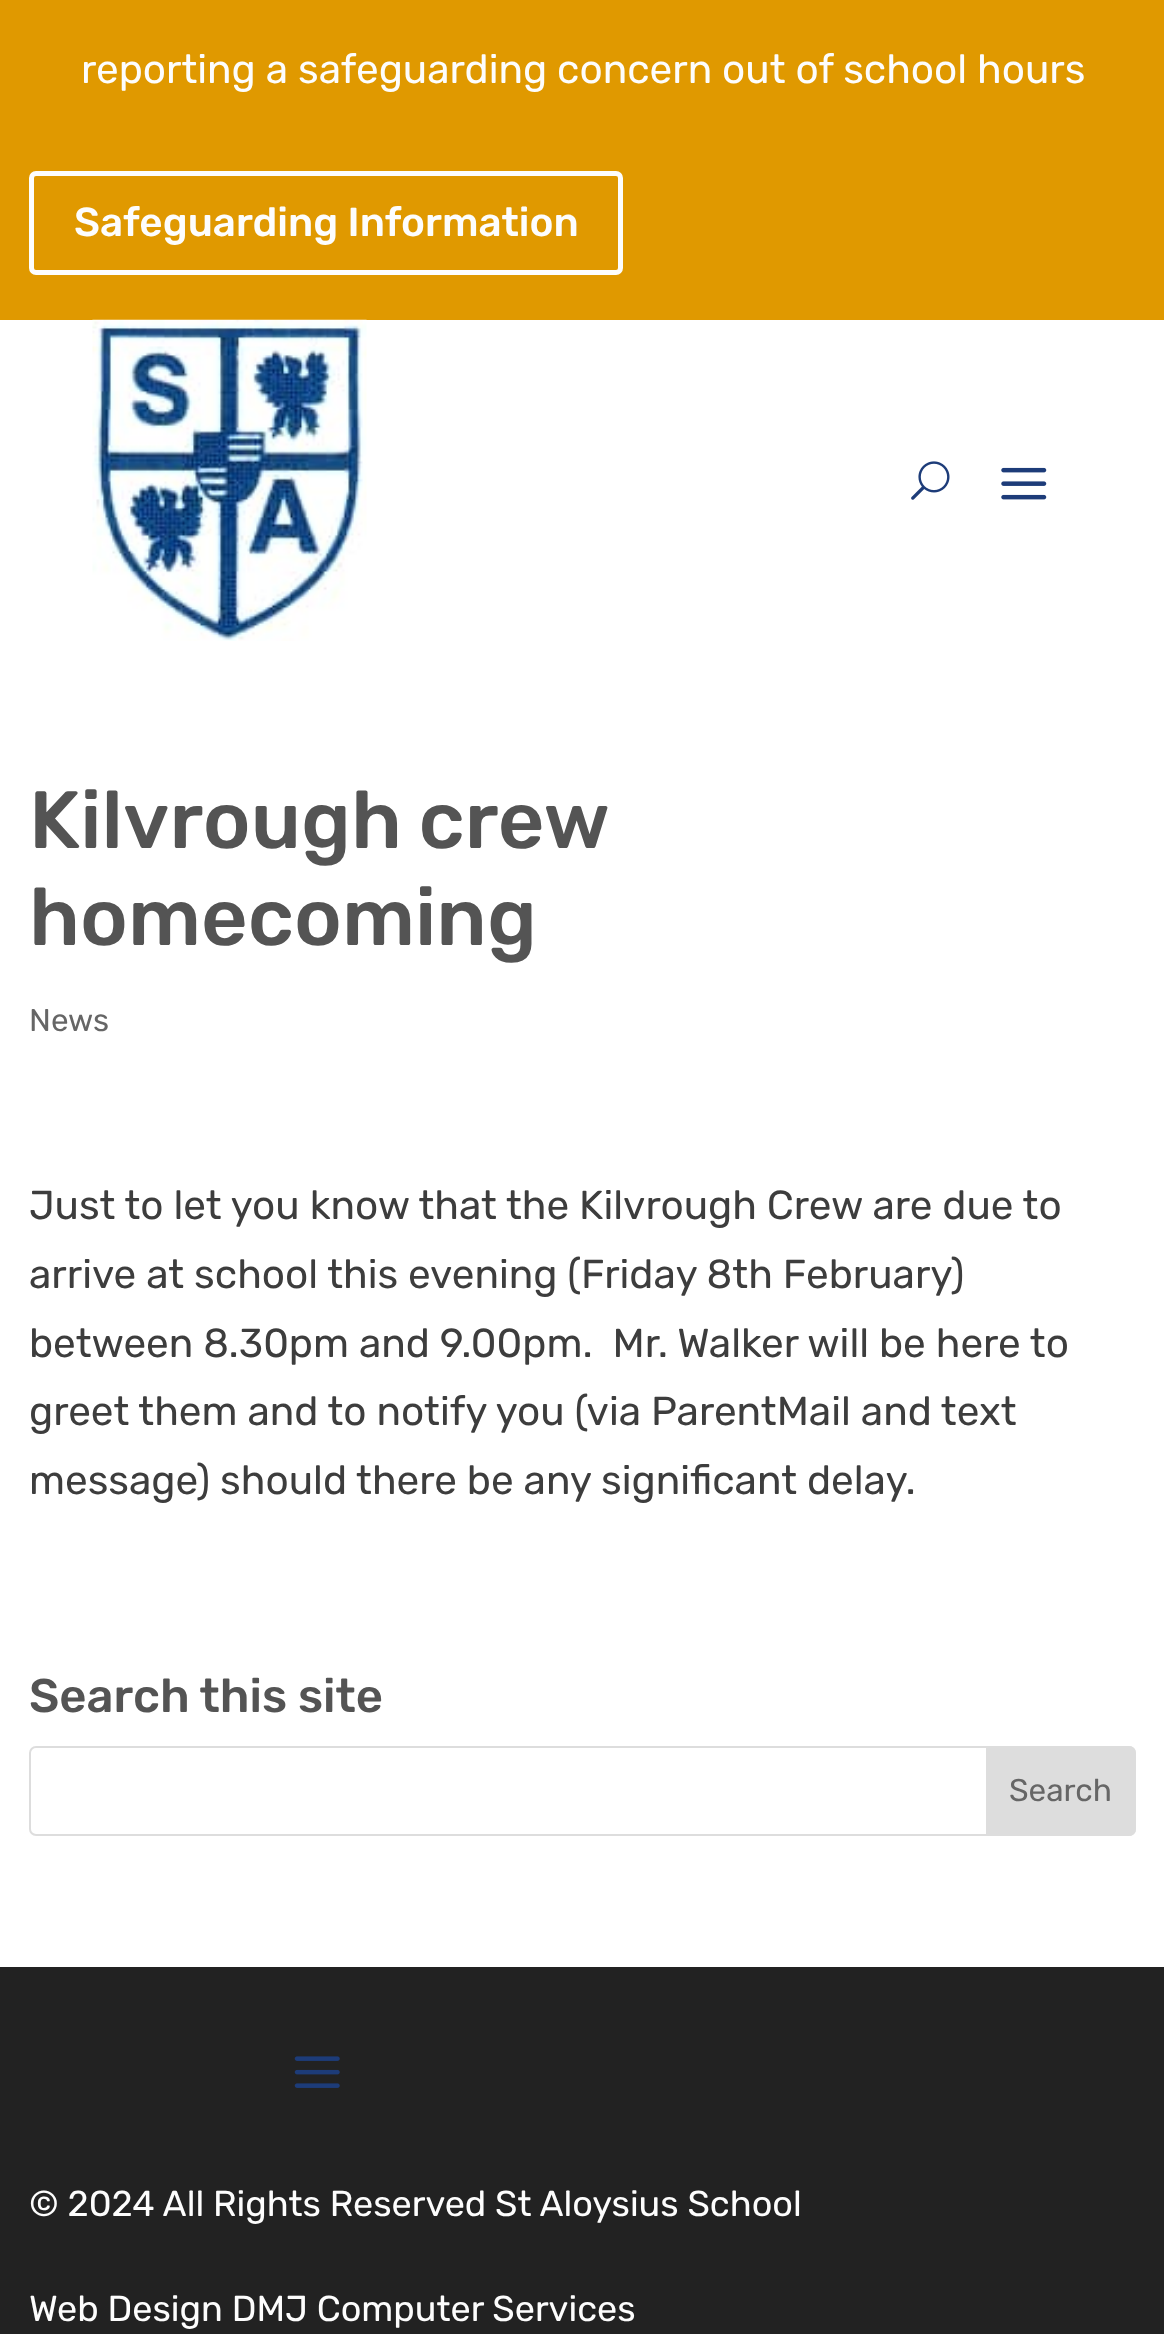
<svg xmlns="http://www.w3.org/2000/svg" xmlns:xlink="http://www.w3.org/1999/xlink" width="1164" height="2334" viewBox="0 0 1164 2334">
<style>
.cls-1{font:300 40.5px 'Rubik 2';fill:#fdfdfd}
.cls-2{font:300 40.5px Rubik;fill:#fdfdfd}
.cls-3{font:300 81px Rubik;fill:#545454}
.cls-4{font:300 31.5px 'Rubik 2';fill:#666666}
.cls-5{font:300 40.5px 'Rubik 2';fill:#3d3d3d}
.cls-6{font:300 47.25px Rubik;fill:#545454}
.cls-7{font:300 36px 'Rubik 2';fill:#fdfdfd}
</style>
<rect width="100%" height="100%" fill="#ffffff"/>
<rect fill="#e09900" x="0" y="0" width="1164" height="320"/>
<rect fill="none" stroke="#fdfdfd" stroke-width="5" x="31.5" y="173.5" width="589" height="99" rx="4.5"/>
<image xlink:href="image0.png" x="92" y="319" width="275" height="322"/>
<image xlink:href="image1.png" x="911" y="461" width="39" height="39"/>
<image xlink:href="image2.png" x="1001" y="467" width="46" height="33"/>
<rect fill="none" stroke="#dddddd" stroke-width="2" x="30" y="1747" width="1105" height="88" rx="6"/>
<path fill="#dddddd" stroke="#dddddd" stroke-width="2" d="M987 1747H1129C1132.5 1747 1135 1749.5 1135 1753V1829C1135 1832.5 1132.5 1835 1129 1835H987Z"/>
<rect fill="#222222" x="0" y="1967" width="1164" height="367"/>
<image xlink:href="image3.png" x="294" y="2056" width="46" height="32"/>
<text class="cls-1" x="81" y="83">reporting a safeguarding concern out of school hours</text>
<text class="cls-2" x="74" y="236">Safeguarding Information</text>
<text class="cls-3"><tspan x="29" y="848" word-spacing="-2">Kilvrough crew</tspan><tspan x="29" y="945">homecoming</tspan></text>
<text class="cls-4" x="29" y="1031">News</text>
<text class="cls-5" xml:space="preserve"><tspan x="29" y="1219">Just to let you know that the Kilvrough Crew are due to</tspan><tspan x="29" y="1288">arrive at school this evening (Friday 8th February)</tspan><tspan x="29" y="1357">between 8.30pm and 9.00pm.  Mr. Walker will be here to</tspan><tspan x="29" y="1425">greet them and to notify you (via ParentMail and text</tspan><tspan x="29" y="1494">message) should there be any significant delay.</tspan></text>
<text class="cls-6" x="29" y="1712">Search this site</text>
<text class="cls-4" x="1009" y="1801">Search</text>
<text class="cls-7" x="29" y="2216">© 2024 All Rights Reserved St Aloysius School</text>
<text class="cls-7" x="29" y="2321">Web Design DMJ Computer Services</text>
</svg>
